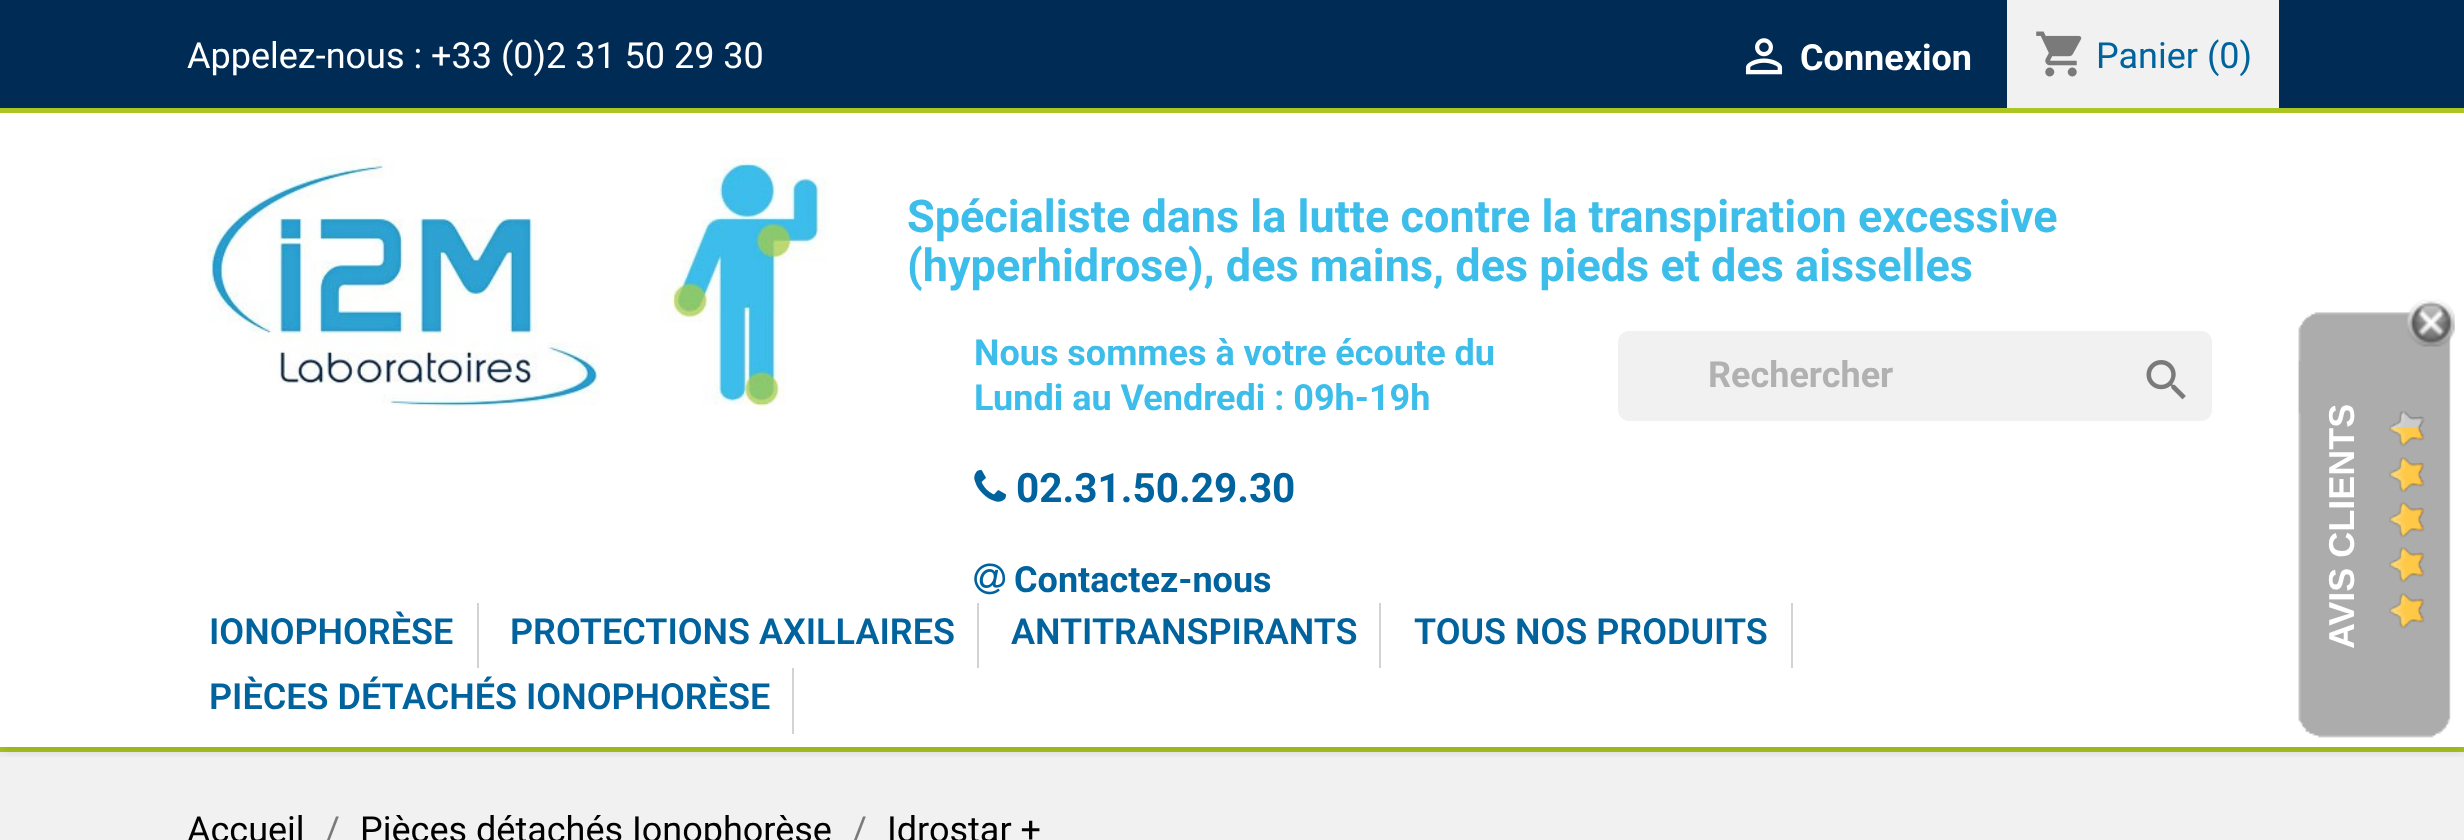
<svg xmlns="http://www.w3.org/2000/svg" xmlns:xlink="http://www.w3.org/1999/xlink" width="2464" height="840" viewBox="0 0 2464 840">
<style>
.cls-1{font:36px Roboto;fill:#ffffff}
.cls-2{font:bold 36px Roboto;fill:#ffffff}
.cls-3{font:36px Roboto;fill:#00639e}
.cls-4{font:bold 45px Roboto;fill:#3dbdea}
.cls-5{font:bold 36px Roboto;fill:#3dbdea}
.cls-6{font:bold 40.5px Roboto;fill:#00639e}
.cls-7{font:bold 36px Roboto;fill:#00639e}
.cls-8{font:bold 36px Roboto;fill:#b1b1b1}
.cls-9{font:600 36px Roboto;fill:#00639e}
.cls-10{font:bold 36px Liberation Sans;fill:#ffffff}
.cls-11{font:36px Roboto;fill:#000000}
.cls-12{font:36px Roboto;fill:#7a7a7a}
</style>
<defs>
<clipPath id="clip1"><rect x="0" y="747" width="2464" height="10"/></clipPath>
</defs>
<rect width="100%" height="100%" fill="#ffffff"/>
<rect fill="#f1f1f1" x="0" y="752" width="2464" height="88"/>
<rect fill="#abc621" x="0" y="747" width="2464" height="5"/>
<g clip-path="url(#clip1)">
<rect fill="#000000" fill-opacity="0.11" filter="blur(5.5px)" x="0" y="5" width="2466" height="747"/>
</g>
<rect fill="#002b55" x="0" y="0" width="2464" height="108"/>
<rect fill="#abc621" x="0" y="108" width="2464" height="5"/>
<image xlink:href="image0.png" x="1745" y="38" width="38" height="37"/>
<rect fill="#f1f1f1" x="2007" y="0" width="272" height="108"/>
<image xlink:href="image1.png" x="2036" y="31" width="46" height="46"/>
<image xlink:href="image2.png" x="207" y="157" width="620" height="254"/>
<image xlink:href="image3.png" x="974" y="470" width="32" height="32"/>
<image xlink:href="image4.png" x="974" y="563" width="32" height="32"/>
<rect fill="#f1f1f1" x="1618" y="331" width="594" height="90" rx="11"/>
<image xlink:href="image5.png" x="2146" y="360" width="40" height="40"/>
<rect fill="#d3d3d3" x="477" y="603" width="2" height="65"/>
<rect fill="#d3d3d3" x="977" y="603" width="2" height="65"/>
<rect fill="#d3d3d3" x="1379" y="603" width="2" height="65"/>
<rect fill="#d3d3d3" x="1791" y="603" width="2" height="65"/>
<rect fill="#d3d3d3" x="792" y="668" width="2" height="66"/>
<image xlink:href="image7.png" x="2298" y="312" width="153" height="426"/>
<image xlink:href="image6.png" x="2407" y="299" width="48" height="48"/>
<image xlink:href="image8.png" x="2389" y="411" width="36" height="218"/>
<text class="cls-1" x="187" y="68">Appelez-nous : +33 (0)2 31 50 29 30</text>
<text class="cls-2" x="1800" y="70">Connexion</text>
<text class="cls-3" x="2096" y="68">Panier (0)</text>
<text class="cls-4"><tspan x="907" y="232">Spécialiste dans la lutte contre la transpiration excessive</tspan><tspan x="907" y="281">(hyperhidrose), des mains, des pieds et des aisselles</tspan></text>
<text class="cls-5"><tspan x="974" y="365">Nous sommes à votre écoute du</tspan><tspan x="974" y="410">Lundi au Vendredi : 09h-19h</tspan></text>
<text class="cls-6" x="1016" y="502">02.31.50.29.30</text>
<text class="cls-7" x="1014" y="592">Contactez-nous</text>
<text class="cls-8" x="1708" y="387">Rechercher</text>
<text class="cls-9" x="209" y="644">IONOPHORÈSE</text>
<text class="cls-9" x="510" y="644">PROTECTIONS AXILLAIRES</text>
<text class="cls-9" x="1011" y="644">ANTITRANSPIRANTS</text>
<text class="cls-9" x="1414" y="644">TOUS NOS PRODUITS</text>
<text class="cls-9" x="209" y="709">PIÈCES DÉTACHÉS IONOPHORÈSE</text>
<text class="cls-10" x="2354" y="649" transform="rotate(-90 2354 649)">AVIS CLIENTS</text>
<text class="cls-11" x="187" y="842">Accueil</text>
<text class="cls-12" x="325" y="842">/</text>
<text class="cls-11" x="360" y="842">Pièces détachés Ionophorèse</text>
<text class="cls-12" x="852" y="842">/</text>
<text class="cls-11" x="887" y="842">Idrostar +</text>
</svg>
